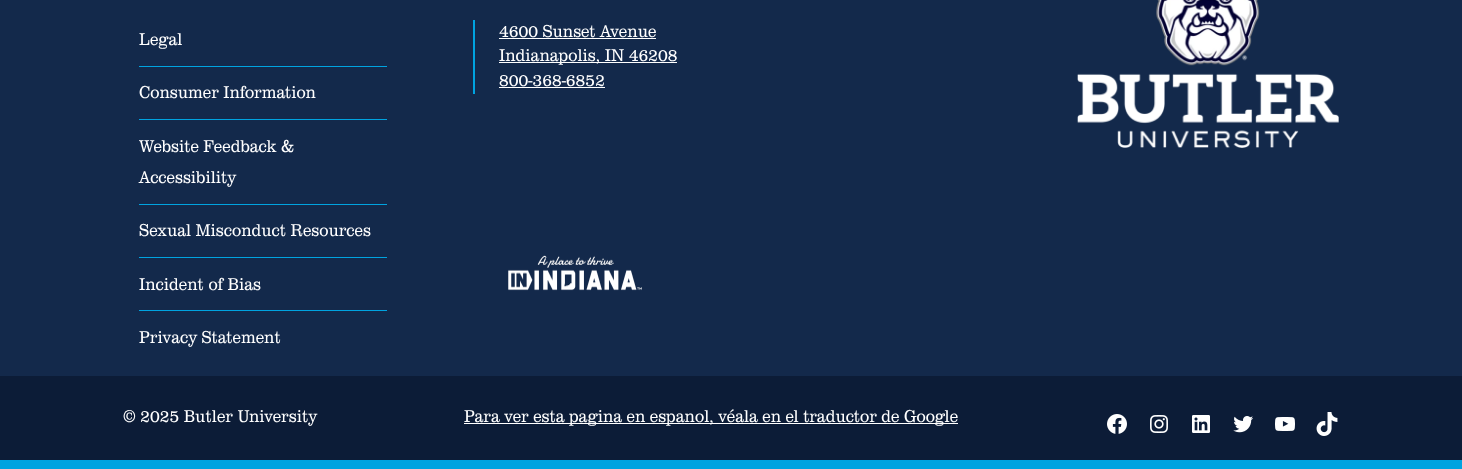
<svg xmlns="http://www.w3.org/2000/svg" xmlns:xlink="http://www.w3.org/1999/xlink" width="1462" height="469" viewBox="0 0 1462 469">
<style>
.cls-1{font:300 17.75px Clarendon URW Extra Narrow;fill:#ffffff}
</style>
<rect width="100%" height="100%" fill="#13294b"/>
<rect fill="#00a3e0" x="0" y="460" width="1462" height="9"/>
<rect fill="#00a3e0" x="139" y="66" width="248" height="1"/>
<rect fill="#00a3e0" x="139" y="119" width="248" height="1"/>
<rect fill="#00a3e0" x="139" y="204" width="248" height="1"/>
<rect fill="#00a3e0" x="139" y="257" width="248" height="1"/>
<rect fill="#00a3e0" x="139" y="310" width="248" height="1"/>
<rect fill="#00a3e0" x="473" y="20" width="2" height="74"/>
<rect fill="#ffffff" x="499" y="38" width="157" height="1"/>
<rect fill="#ffffff" x="499" y="62" width="178" height="1"/>
<rect fill="#ffffff" x="499" y="87" width="106" height="1"/>
<image xlink:href="image0.png" x="508" y="255" width="134" height="36"/>
<image xlink:href="image1.png" x="1077" y="0" width="262" height="148"/>
<rect fill="#0c1c37" x="0" y="376" width="1462" height="84"/>
<rect fill="#ffffff" x="464" y="423" width="494" height="1"/>
<image xlink:href="image2.png" x="1107" y="414" width="20" height="20"/>
<image xlink:href="image3.png" x="1150" y="415" width="18" height="18"/>
<image xlink:href="image4.png" x="1192" y="415" width="18" height="18"/>
<image xlink:href="image5.png" x="1233" y="416" width="20" height="17"/>
<image xlink:href="image6.png" x="1275" y="417" width="20" height="14"/>
<image xlink:href="image7.png" x="1316" y="412" width="22" height="24"/>
<text class="cls-1" x="139" y="45">Legal</text>
<text class="cls-1" x="139" y="98">Consumer Information</text>
<text class="cls-1"><tspan x="139" y="152">Website Feedback &amp;</tspan><tspan x="139" y="183">Accessibility</tspan></text>
<text class="cls-1" x="139" y="236">Sexual Misconduct Resources</text>
<text class="cls-1" x="139" y="290">Incident of Bias</text>
<text class="cls-1" x="139" y="343">Privacy Statement</text>
<text class="cls-1"><tspan x="499" y="37">4600 Sunset Avenue</tspan><tspan x="499" y="61">Indianapolis, IN 46208</tspan><tspan x="499" y="86">800-368-6852</tspan></text>
<text class="cls-1" x="123" y="422">© 2025 Butler University</text>
<text class="cls-1" x="464" y="422">Para ver esta pagina en espanol, véala en el traductor de Google</text>
</svg>
